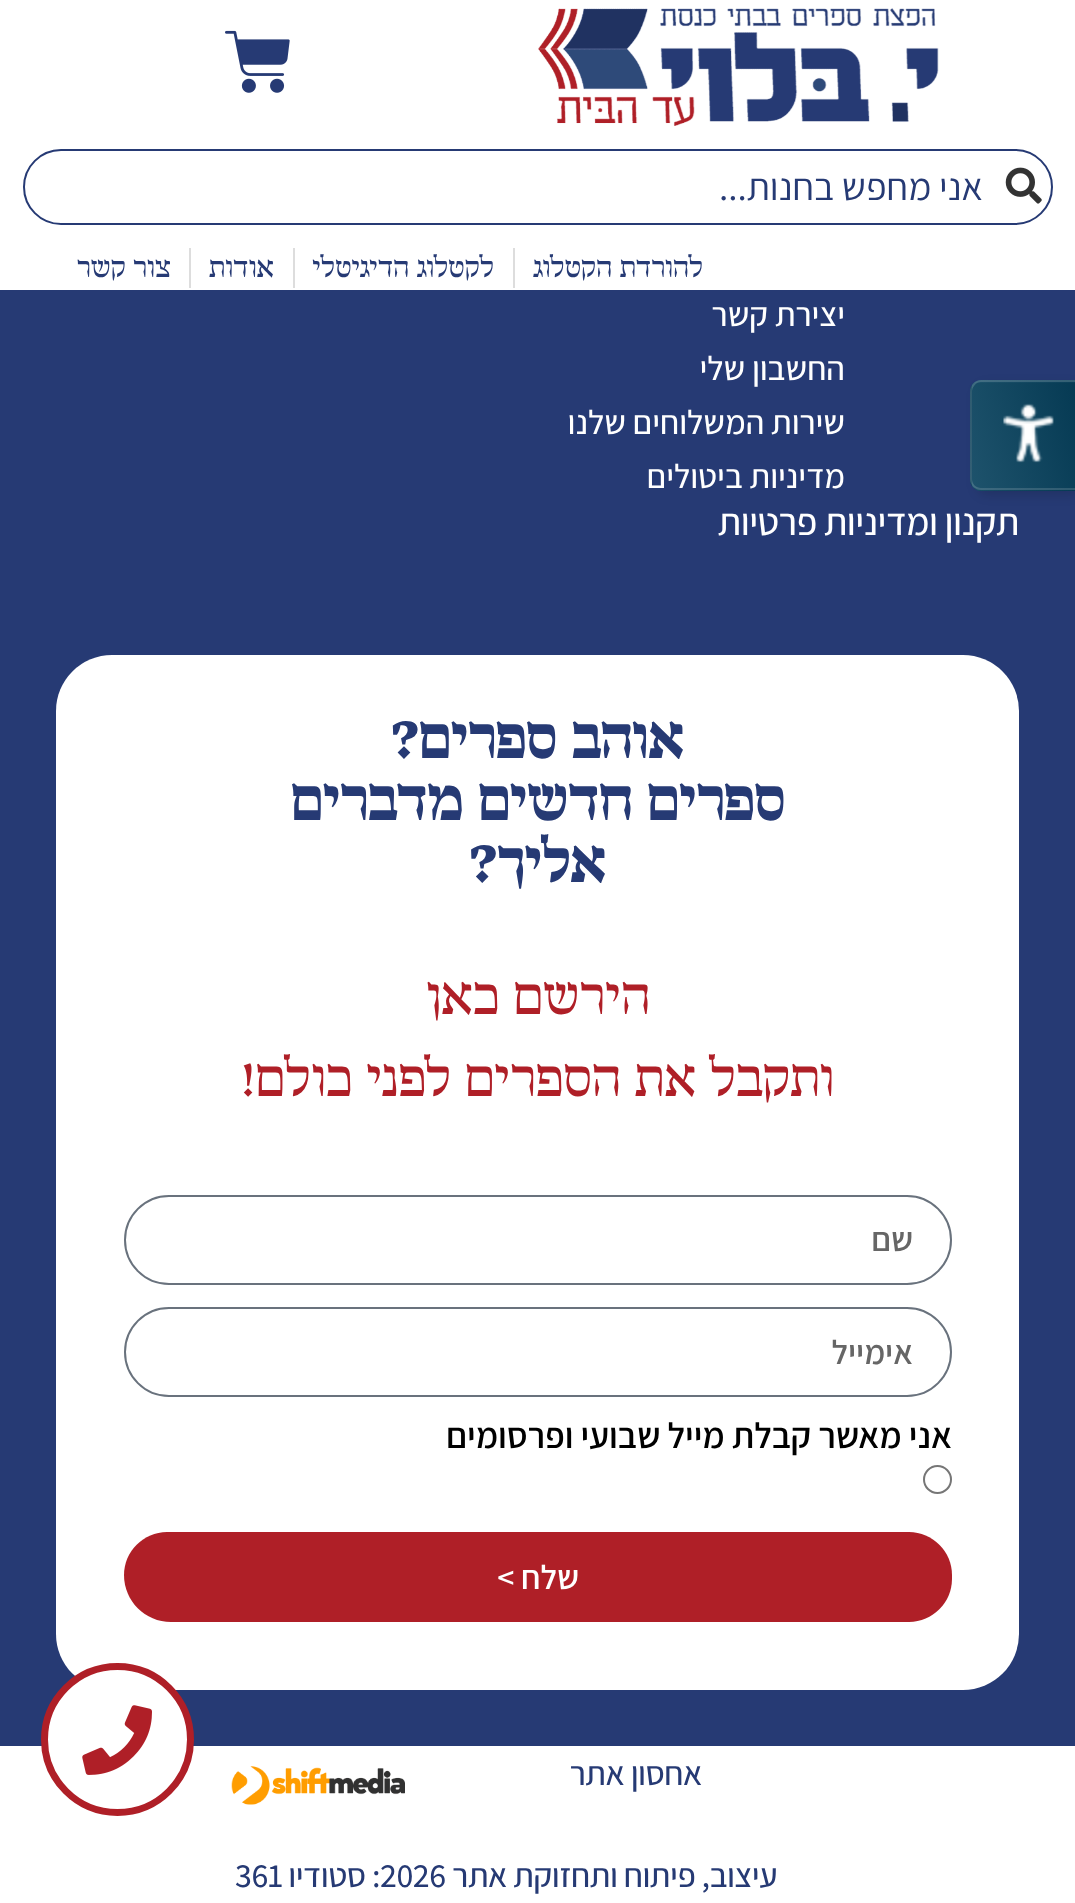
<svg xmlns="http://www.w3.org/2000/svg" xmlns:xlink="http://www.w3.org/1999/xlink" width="1075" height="1903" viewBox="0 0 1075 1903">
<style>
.cls-1{font:38.25px Assistant;direction:rtl;fill:#263a74}
.cls-2{font:27px 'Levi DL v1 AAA';direction:rtl;fill:#263a74}
.cls-3{font:500 33.75px Assistant;direction:rtl;fill:#ffffff}
.cls-4{font:500 38.25px Assistant;letter-spacing:-0.45px;direction:rtl;fill:#ffffff}
.cls-5{font:bold 56.25px 'Levi DL v1 AAA';direction:rtl;fill:#263a74}
.cls-6{font:49.5px 'Levi DL v1 AAA';direction:rtl;fill:#af1f27}
.cls-7{font:600 33.75px Assistant;direction:rtl;fill:#666666}
.cls-8{font:600 36px Assistant;direction:rtl;fill:#000000}
.cls-9{font:600 33.75px Assistant;direction:rtl;fill:#ffffff}
.cls-10{font:500 33.75px Assistant;letter-spacing:-0.45px;direction:rtl;fill:#263a74}
.cls-11{font:500 33.75px Assistant;letter-spacing:-0.45px;fill:#263a74}
</style>
<defs>
<clipPath id="clip1"><path d="M981 380H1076V491H981C975 491 970 486 970 480V391C970 385 975 380 981 380Z"/></clipPath>
<linearGradient id="g1" gradientUnits="userSpaceOnUse" x1="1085" y1="313" x2="962" y2="346"><stop offset="0.01" stop-color="#000000" stop-opacity="0.35"/><stop offset="0.98" stop-color="#434343" stop-opacity="0.35"/></linearGradient>
<linearGradient id="g2" gradientUnits="userSpaceOnUse" x1="982" y1="419" x2="859" y2="452"><stop offset="0.01" stop-color="#000000" stop-opacity="0.35"/><stop offset="0.98" stop-color="#434343" stop-opacity="0.35"/></linearGradient>
<linearGradient id="g3" gradientUnits="userSpaceOnUse" x1="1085" y1="419" x2="962" y2="452"><stop offset="0.01" stop-color="#000000" stop-opacity="0.35"/><stop offset="0.98" stop-color="#434343" stop-opacity="0.35"/></linearGradient>
<linearGradient id="g4" gradientUnits="userSpaceOnUse" x1="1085" y1="525" x2="962" y2="557"><stop offset="0.01" stop-color="#000000" stop-opacity="0.35"/><stop offset="0.98" stop-color="#434343" stop-opacity="0.35"/></linearGradient>
</defs>
<rect width="100%" height="100%" fill="#ffffff"/>
<image xlink:href="image0.png" x="538" y="8" width="401" height="118"/>
<image xlink:href="image1.png" x="225" y="30" width="65" height="63"/>
<rect fill="none" stroke="#263a74" stroke-width="2" x="24" y="150" width="1028" height="74" rx="37"/>
<image xlink:href="image2.png" x="1005" y="167" width="37" height="37"/>
<rect fill="#dddddd" x="513" y="248" width="2" height="40"/>
<rect fill="#dddddd" x="293" y="248" width="2" height="40"/>
<rect fill="#dddddd" x="189" y="248" width="2" height="40"/>
<rect fill="#263a74" x="0" y="290" width="1075" height="1456"/>
<rect fill="#ffffff" x="56" y="655" width="963" height="1035" rx="56"/>
<circle fill="#ffffff" stroke="#af1f27" stroke-width="7" cx="117.5" cy="1739.5" r="73"/>
<image xlink:href="image3.png" x="82" y="1705" width="70" height="70"/>
<rect fill="none" stroke="#69727d" stroke-width="2" x="125" y="1196" width="826" height="88" rx="44"/>
<rect fill="none" stroke="#69727d" stroke-width="2" x="125" y="1308" width="826" height="88" rx="44"/>
<circle fill="none" stroke="#767676" stroke-width="2" cx="937.5" cy="1479.5" r="13.5"/>
<path fill="#af1f27" d="M167 1532H909C932.5 1532 952 1551.5 952 1575V1579C952 1602.5 932.5 1622 909 1622H171C145 1622 124 1601 124 1575C124 1551.5 143.5 1532 167 1532Z"/>
<image xlink:href="image4.png" x="231" y="1766" width="174" height="39"/>
<rect fill="#000000" fill-opacity="0.14" filter="blur(5.5px)" x="977" y="385" width="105" height="110" rx="11"/>
<path fill="#095a81" d="M981 380H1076V491H981C975 491 970 486 970 480V391C970 385 975 380 981 380Z"/>
<g clip-path="url(#clip1)">
<rect fill="url(#g1)" x="972" y="380" width="103" height="3"/>
<rect fill="url(#g2)" x="970" y="383" width="2" height="105"/>
<rect fill="url(#g3)" x="972" y="383" width="103" height="105"/>
<rect fill="url(#g4)" x="972" y="488" width="103" height="3"/>
</g>
<path fill="#ffffff" fill-opacity="0.17" fill-rule="evenodd" d="M981 380H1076V490H981C975 490 970 485 970 479V392C970 385 975 380 981 380ZM981 382H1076V488H981C976 488 972 484 972 479V392C972 387 976 382 981 382Z"/>
<image xlink:href="image5.png" x="1003" y="403" width="51" height="60"/>
<text class="cls-1" x="983" y="200">אני מחפש בחנות...</text>
<text class="cls-2" x="703" y="277">להורדת הקטלוג</text>
<text class="cls-2" x="494" y="277">לקטלוג הדיגיטלי</text>
<text class="cls-2" x="274" y="277">אודות</text>
<text class="cls-2" x="171" y="277">צור קשר</text>
<text class="cls-3"><tspan x="845" y="326">יצירת קשר</tspan><tspan x="845" y="380">החשבון שלי</tspan><tspan x="845" y="434">שירות המשלוחים שלנו</tspan><tspan x="845" y="488">מדיניות ביטולים</tspan></text>
<text class="cls-4" x="1019" y="535">תקנון ומדיניות פרטיות</text>
<text class="cls-5" x="684" y="758">אוהב ספרים?</text>
<text class="cls-5" x="785" y="820">ספרים חדשים מדברים</text>
<text class="cls-5" x="606" y="882">אליך?</text>
<text class="cls-6" x="650" y="1014">הירשם כאן</text>
<text class="cls-6" x="834" y="1096">ותקבל את הספרים לפני כולם!</text>
<text class="cls-7" x="913" y="1251">שם</text>
<text class="cls-7" x="913" y="1364">אימייל</text>
<text class="cls-8" x="952" y="1448">אני מאשר קבלת מייל שבועי ופרסומים</text>
<text class="cls-9" x="579" y="1589">שלח &gt;</text>
<text class="cls-10" x="702" y="1785">אחסון אתר</text>
<text class="cls-10" x="777" y="1887">עיצוב, פיתוח ותחזוקת אתר</text>
<text class="cls-11" x="380" y="1887">2026</text>
<text class="cls-10" x="380" y="1887">: סטודיו</text>
<text class="cls-11" x="235" y="1887">361</text>
</svg>
